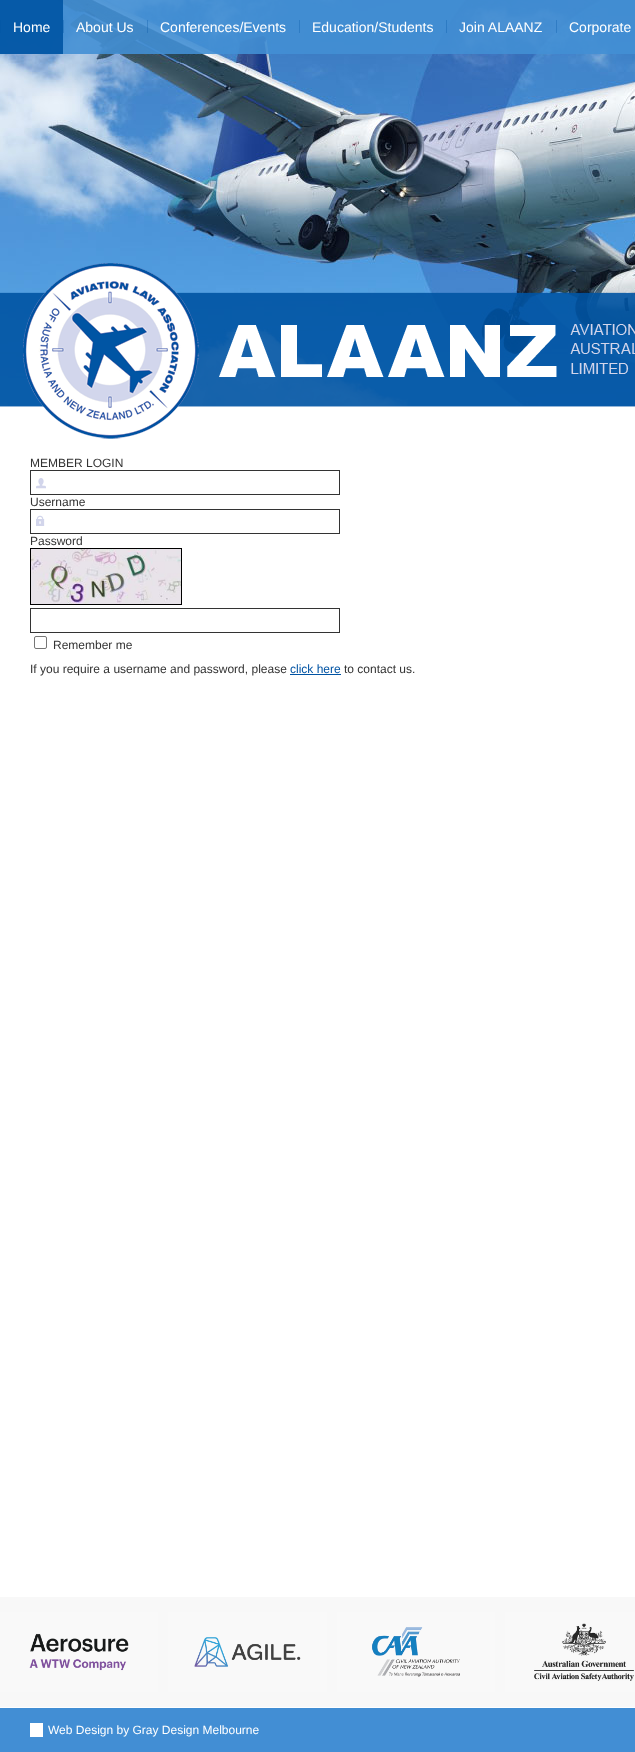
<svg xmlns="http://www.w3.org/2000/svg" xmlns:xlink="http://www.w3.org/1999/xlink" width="635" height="1752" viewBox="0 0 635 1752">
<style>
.cls-1{font:14px Liberation Sans;fill:#ffffff}
.cls-2{font:12px Liberation Sans;fill:#333333}
.cls-3{font:12px Liberation Sans;fill:#0053a3}
.cls-4{font:12px Liberation Sans;fill:#ffffff}
</style>
<rect width="100%" height="100%" fill="#ffffff"/>
<image xlink:href="image0.png" x="0" y="0" width="635" height="406"/>
<rect fill="#428fd4" fill-opacity="0.9" x="0" y="0" width="635" height="54"/>
<rect fill="#2e7cc4" x="0" y="20" width="1" height="13"/>
<rect fill="#0054a3" fill-opacity="0.9" x="0" y="0" width="63" height="54"/>
<rect fill="#2f7cc4" x="63" y="20" width="1" height="13"/>
<rect fill="#0053a2" fill-opacity="0.3" x="147" y="20" width="1" height="13"/>
<rect fill="#2e7cc4" x="299" y="20" width="1" height="13"/>
<rect fill="#0053a2" fill-opacity="0.3" x="446" y="20" width="1" height="13"/>
<rect fill="#0053a2" fill-opacity="0.3" x="556" y="20" width="1" height="13"/>
<image xlink:href="image1.png" x="0" y="263" width="635" height="176"/>
<image xlink:href="image2.png" x="36" y="478" width="10" height="11"/>
<rect fill="none" stroke="#333333" x="30.5" y="470.5" width="309" height="24"/>
<image xlink:href="image3.png" x="36" y="515" width="9" height="11"/>
<rect fill="none" stroke="#333333" x="30.5" y="509.5" width="309" height="24"/>
<rect fill="none" stroke="#000000" x="30.5" y="548.5" width="151" height="56"/>
<image xlink:href="image4.png" x="31" y="549" width="150" height="55"/>
<rect fill="none" stroke="#333333" x="30.5" y="608.5" width="309" height="24"/>
<rect fill="none" stroke="#767676" x="34.5" y="636.5" width="12" height="12" rx="1.5"/>
<rect fill="#0053a3" x="290" y="674" width="51" height="1"/>
<rect fill="#f8f8f8" x="0" y="1597" width="635" height="110"/>
<rect fill="#ffffff" x="0" y="1612" width="158" height="80"/>
<image xlink:href="image5.png" x="29" y="1633" width="100" height="38"/>
<rect fill="#c8c8c8" fill-opacity="0.1" x="0" y="1612" width="158" height="80"/>
<rect fill="#ffffff" x="168" y="1612" width="159" height="80"/>
<image xlink:href="image6.png" x="194" y="1637" width="107" height="30"/>
<rect fill="#c8c8c8" fill-opacity="0.1" x="168" y="1612" width="159" height="80"/>
<rect fill="#ffffff" x="337" y="1612" width="158" height="80"/>
<image xlink:href="image7.png" x="372" y="1627" width="88" height="50"/>
<rect fill="#c8c8c8" fill-opacity="0.1" x="337" y="1612" width="158" height="80"/>
<rect fill="#ffffff" x="505" y="1612" width="130" height="80"/>
<image xlink:href="image8.png" x="534" y="1623" width="100" height="58"/>
<rect fill="#c8c8c8" fill-opacity="0.1" x="505" y="1612" width="130" height="80"/>
<rect fill="#428ed4" x="0" y="1708" width="635" height="44"/>
<rect fill="#ffffff" x="30" y="1723" width="13" height="14"/>
<text class="cls-1" x="13" y="32">Home</text>
<text class="cls-1" x="76" y="32">About Us</text>
<text class="cls-1" x="160" y="32">Conferences/Events</text>
<text class="cls-1" x="312" y="32">Education/Students</text>
<text class="cls-1" x="459" y="32">Join ALAANZ</text>
<text class="cls-1" x="569" y="32">Corporate</text>
<text class="cls-2" x="30" y="467">MEMBER LOGIN</text>
<text class="cls-2" x="30" y="506">Username</text>
<text class="cls-2" x="30" y="545">Password</text>
<text class="cls-2" x="53" y="649">Remember me</text>
<text class="cls-2" x="30" y="673">If you require a username and password, please</text>
<text class="cls-3" x="290" y="673">click here</text>
<text class="cls-2" x="344" y="673">to contact us.</text>
<text class="cls-4" x="48" y="1734">Web Design by Gray Design Melbourne</text>
</svg>
